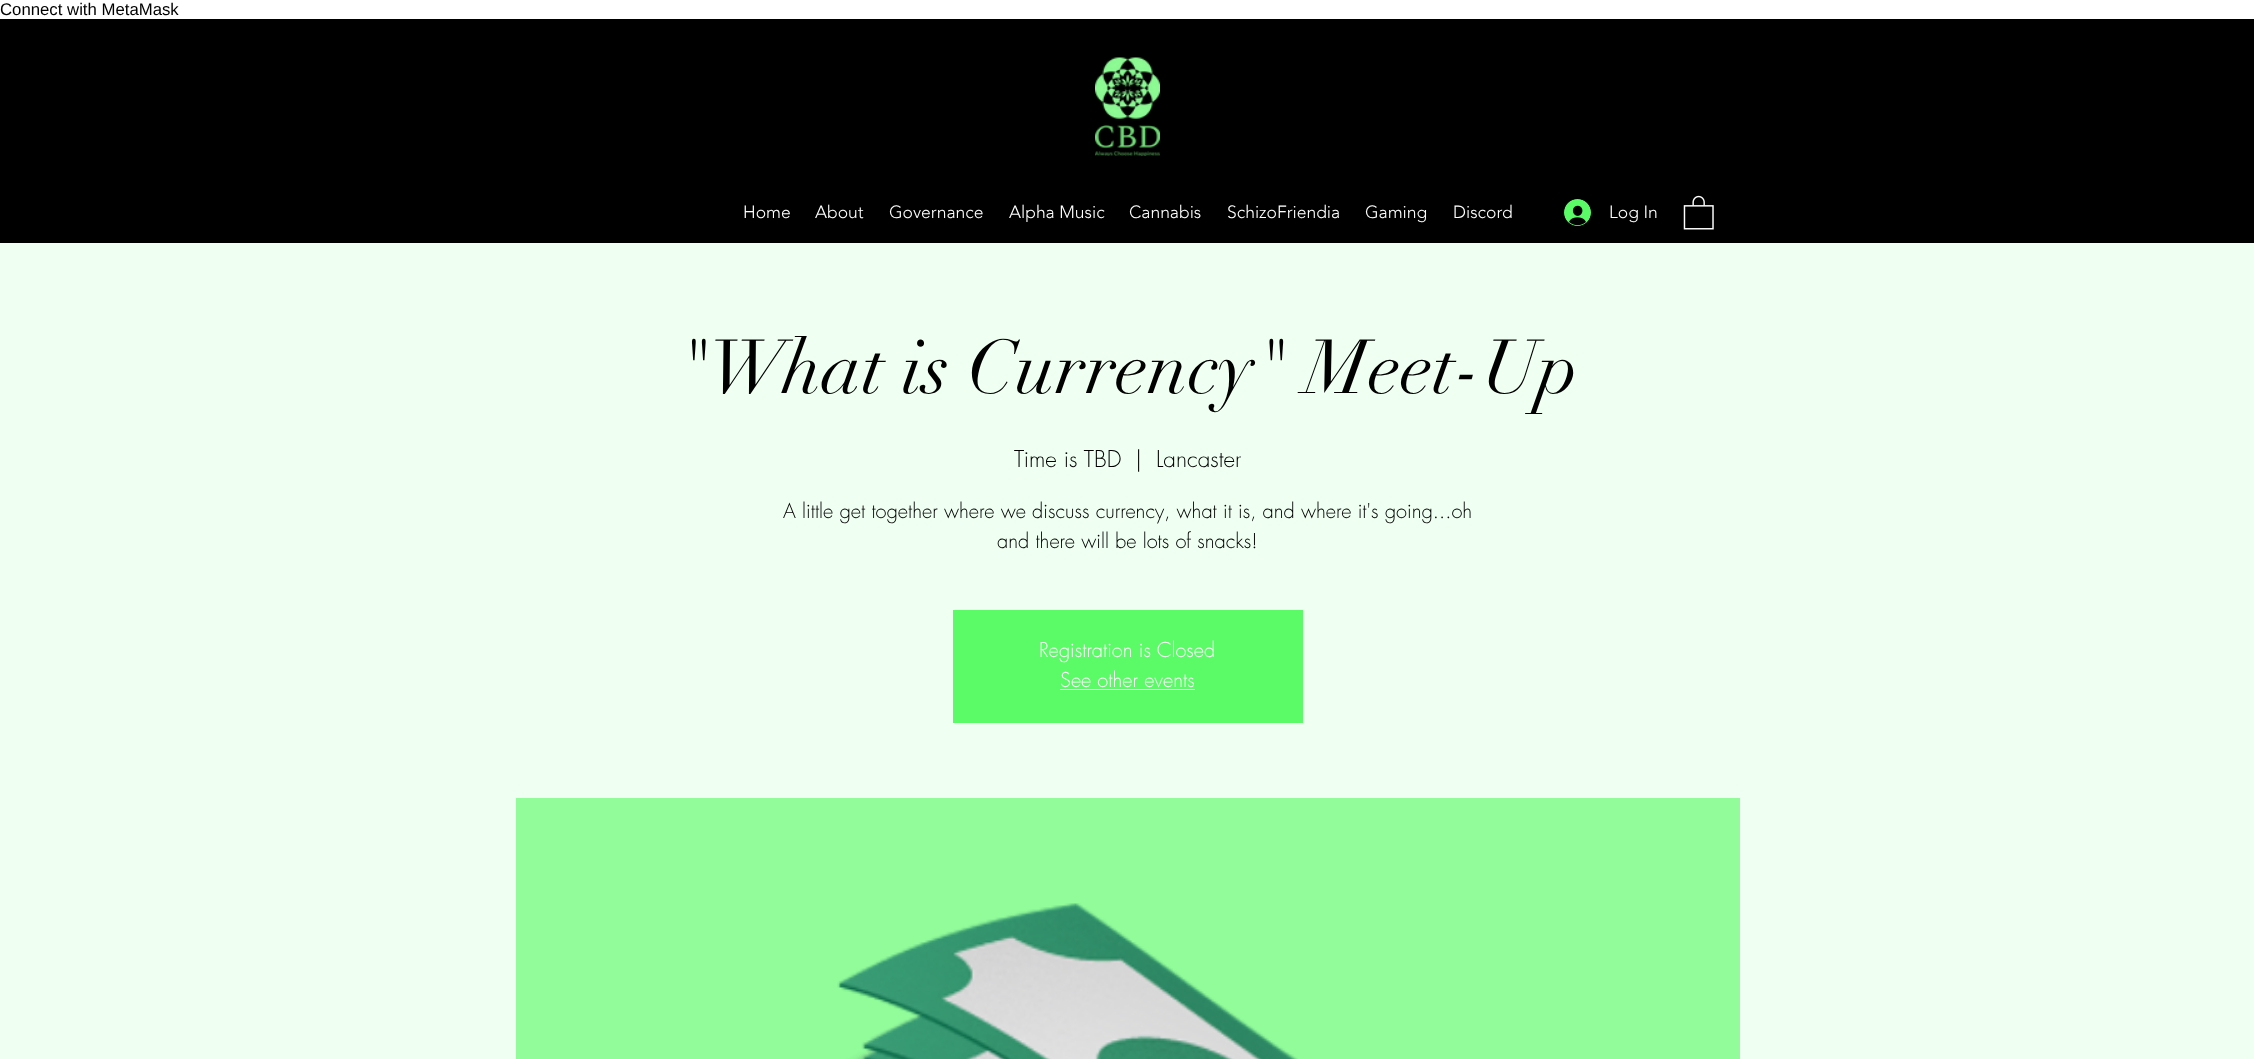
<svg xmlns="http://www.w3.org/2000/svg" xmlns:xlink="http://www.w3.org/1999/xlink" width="2254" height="1059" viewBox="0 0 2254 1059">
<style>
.cls-1{font:16.75px Liberation Sans;fill:#000000}
.cls-2{font:300 17.5px 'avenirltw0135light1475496';fill:#ffffff}
.cls-3{font:75px didot;fill:#000000}
.cls-4{font:300 22.5px futura;fill:#000000}
.cls-5{font:300 20px futura;fill:#000000}
.cls-6{font:300 20px futura;fill:#ffffff}
</style>
<rect width="100%" height="100%" fill="#ffffff"/>
<rect fill="#000000" x="0" y="19" width="2254" height="224"/>
<image xlink:href="image0.png" x="1095" y="57" width="65" height="99"/>
<image xlink:href="image1.png" x="1564" y="199" width="27" height="27"/>
<image xlink:href="image2.png" x="1683" y="195" width="31" height="35"/>
<rect fill="#effff1" x="0" y="243" width="2254" height="816"/>
<rect fill="#5afb66" x="953" y="610" width="350" height="113"/>
<rect fill="#ffffff" x="1060" y="689" width="135" height="1"/>
<rect fill="#91fc99" x="516" y="798" width="1224" height="261"/>
<image xlink:href="image3.png" x="837" y="903" width="461" height="156"/>
<text class="cls-1" x="0" y="15">Connect with MetaMask</text>
<text class="cls-2" x="743" y="218">Home</text>
<text class="cls-2" x="815" y="218">About</text>
<text class="cls-2" x="889" y="218">Governance</text>
<text class="cls-2" x="1009" y="218">Alpha Music</text>
<text class="cls-2" x="1129" y="218">Cannabis</text>
<text class="cls-2" x="1227" y="218">SchizoFriendia</text>
<text class="cls-2" x="1365" y="218">Gaming</text>
<text class="cls-2" x="1453" y="218">Discord</text>
<text class="cls-2" x="1609" y="218">Log In</text>
<text class="cls-3" x="676" y="393">"What is Currency" Meet-Up</text>
<text class="cls-4" x="1014" y="467">Time is TBD</text>
<text class="cls-4" x="1135" y="467">|</text>
<text class="cls-4" x="1156" y="467">Lancaster</text>
<text class="cls-5" x="783" y="518">A little get together where we discuss currency, what it is, and where it's going...oh</text>
<text class="cls-5" x="997" y="548">and there will be lots of snacks!</text>
<text class="cls-6" x="1039" y="657">Registration is Closed</text>
<text class="cls-6" x="1060" y="687">See other events</text>
</svg>
